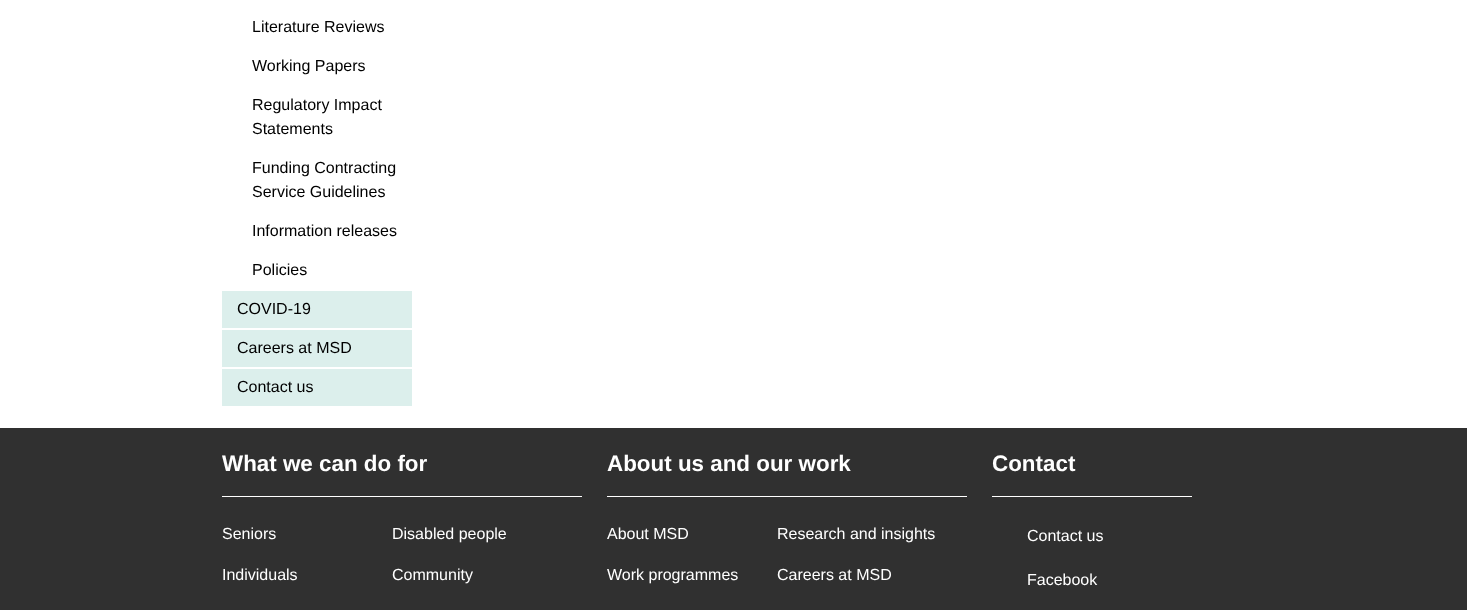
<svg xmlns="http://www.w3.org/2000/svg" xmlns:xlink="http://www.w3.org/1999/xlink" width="1467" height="610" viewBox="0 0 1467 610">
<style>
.cls-1{font:16px Liberation Sans;fill:#000000}
.cls-2{font:bold 22.4px Liberation Sans;fill:#ffffff}
.cls-3{font:16px Liberation Sans;fill:#ffffff}
</style>
<rect width="100%" height="100%" fill="#ffffff"/>
<rect fill="#dcefec" x="222" y="291" width="190" height="37"/>
<rect fill="#dcefec" x="222" y="330" width="190" height="37"/>
<rect fill="#dcefec" x="222" y="369" width="190" height="37"/>
<rect fill="#303030" x="0" y="428" width="1467" height="182"/>
<rect fill="#ffffff" x="222" y="496" width="360" height="1"/>
<rect fill="#ffffff" x="607" y="496" width="360" height="1"/>
<rect fill="#ffffff" x="992" y="496" width="200" height="1"/>
<text class="cls-1" x="252" y="32">Literature Reviews</text>
<text class="cls-1" x="252" y="71">Working Papers</text>
<text class="cls-1"><tspan x="252" y="110">Regulatory Impact</tspan><tspan x="252" y="134">Statements</tspan></text>
<text class="cls-1"><tspan x="252" y="173">Funding Contracting</tspan><tspan x="252" y="197">Service Guidelines</tspan></text>
<text class="cls-1" x="252" y="236">Information releases</text>
<text class="cls-1" x="252" y="275">Policies</text>
<text class="cls-1" x="237" y="314">COVID-19</text>
<text class="cls-1" x="237" y="353">Careers at MSD</text>
<text class="cls-1" x="237" y="392">Contact us</text>
<text class="cls-2" x="222" y="471">What we can do for</text>
<text class="cls-3" x="222" y="539">Seniors</text>
<text class="cls-3" x="222" y="580">Individuals</text>
<text class="cls-3" x="392" y="539">Disabled people</text>
<text class="cls-3" x="392" y="580">Community</text>
<text class="cls-2" x="607" y="471">About us and our work</text>
<text class="cls-3" x="607" y="539">About MSD</text>
<text class="cls-3" x="607" y="580">Work programmes</text>
<text class="cls-3" x="777" y="539">Research and insights</text>
<text class="cls-3" x="777" y="580">Careers at MSD</text>
<text class="cls-2" x="992" y="471">Contact</text>
<text class="cls-3" x="1027" y="541">Contact us</text>
<text class="cls-3" x="1027" y="585">Facebook</text>
</svg>
